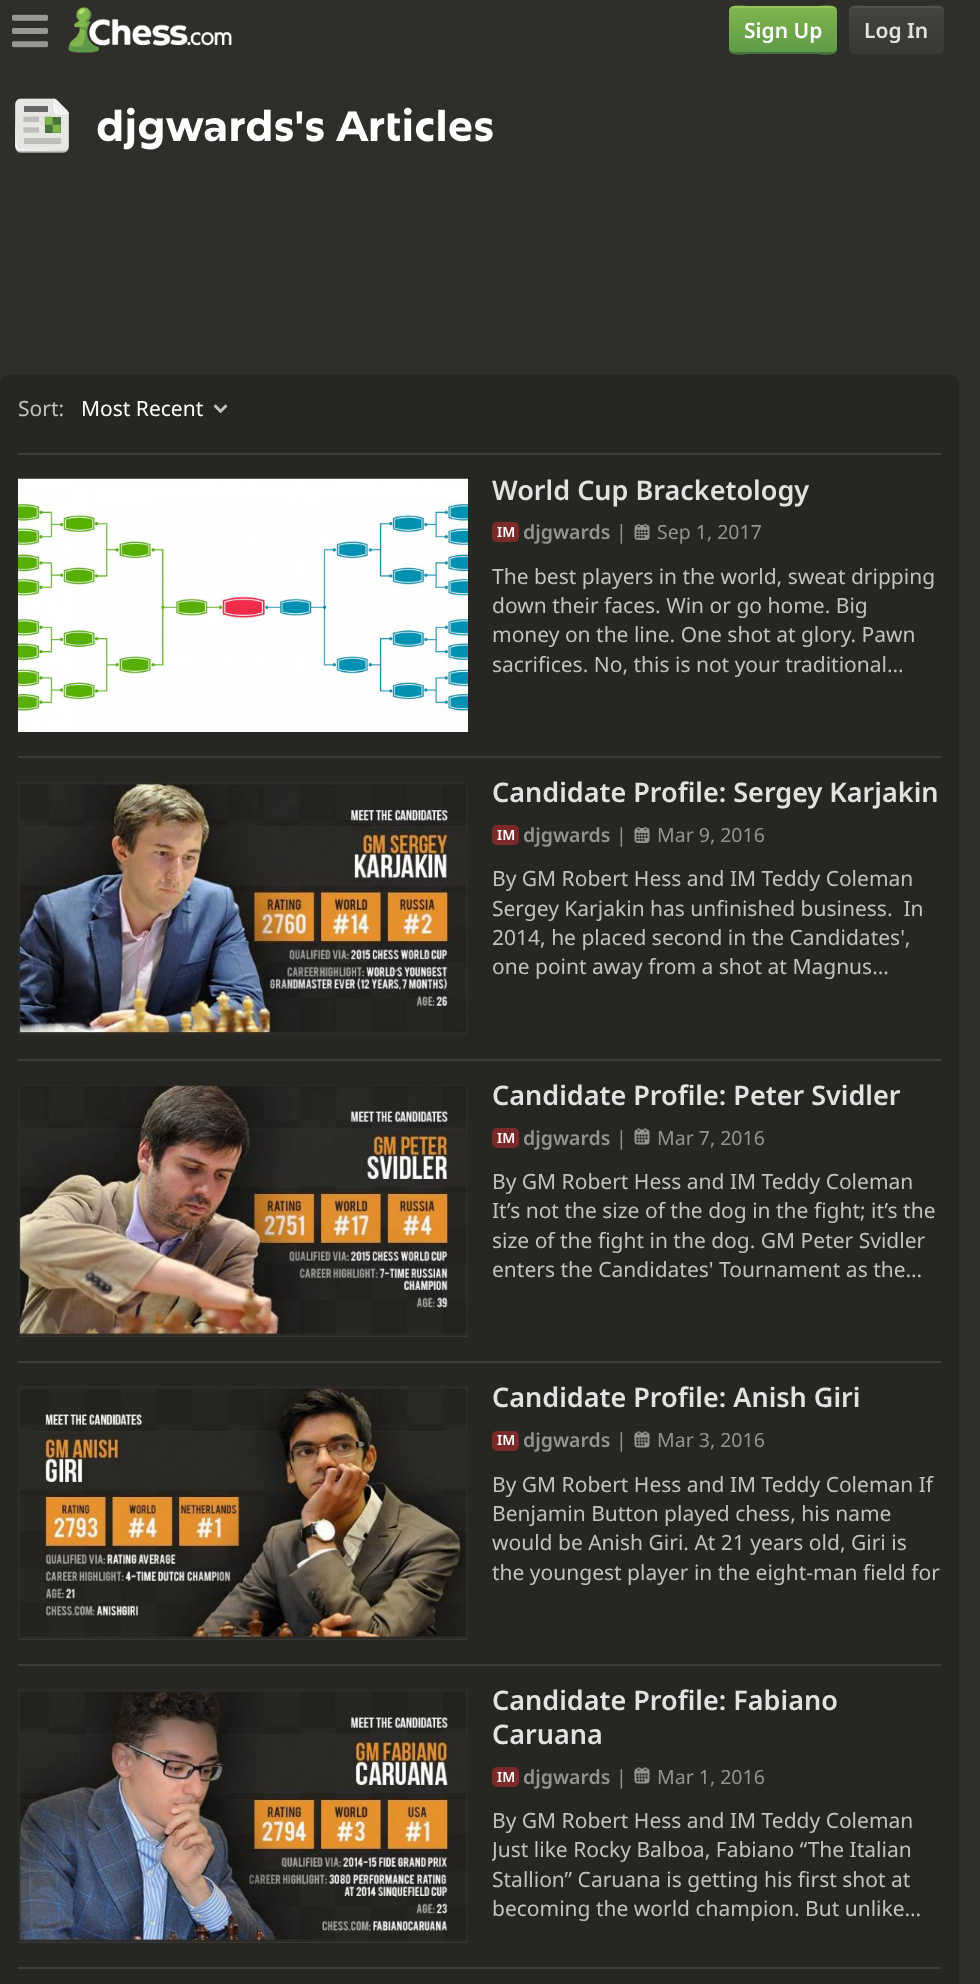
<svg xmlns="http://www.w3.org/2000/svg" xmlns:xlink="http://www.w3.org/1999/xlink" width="980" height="1984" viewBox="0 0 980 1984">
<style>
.cls-1{font:600 21px Noto Sans;fill:#ffffff}
.cls-2{font:600 21px Noto Sans;fill:#e2e2e2}
.cls-3{font:bold 42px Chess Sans;fill:#ffffff}
.cls-4{font:21px Noto Sans;fill:#c2c2c1}
.cls-5{font:21px Noto Sans;fill:#ffffff}
.cls-6{font:600 27px Noto Sans;fill:#e2e2e2}
.cls-7{font:600 14px Noto Sans;fill:#ffffff}
.cls-8{font:600 19.5px Noto Sans;fill:#939391}
.cls-9{font:19.5px Noto Sans;fill:#939391}
</style>
<defs>
<linearGradient id="g1" gradientUnits="userSpaceOnUse" x1="783" y1="6" x2="783" y2="54"><stop offset="0" stop-color="#81b64c"/><stop offset="1" stop-color="#5d9948"/></linearGradient>
<linearGradient id="g2" gradientUnits="userSpaceOnUse" x1="896" y1="6" x2="896" y2="54"><stop offset="0" stop-color="#ffffff" stop-opacity="0.1"/><stop offset="1" stop-color="#ffffff" stop-opacity="0.05"/></linearGradient>
<clipPath id="clip1"><rect x="492" y="1806" width="449" height="117"/></clipPath>
</defs>
<rect width="100%" height="100%" fill="#302e2b"/>
<image xlink:href="image0.png" x="12" y="14" width="36" height="34"/>
<image xlink:href="image1.png" x="60" y="2" width="172" height="51"/>
<rect fill="url(#g1)" x="729" y="6" width="108" height="48" rx="5"/>
<path fill="#45753c" d="M729 48C729 58 745 54 750 54H816C821 54 837 58 837 48C837 50 835 52 832 52H734C731 52 729 50 729 48Z"/>
<path fill="#b2e068" fill-opacity="0.4" d="M734 8H832C835 8 837 10 837 12C837 2 821 6 816 6H750C745 6 729 2 729 12C729 10 731 8 734 8Z"/>
<rect fill="url(#g2)" x="849" y="6" width="95" height="48" rx="5"/>
<path fill="#ffffff" fill-opacity="0.08" d="M854 8H939C941 8 944 10 944 12C944 2 930 6 925 6H868C863 6 849 2 849 12C849 10 851 8 854 8Z"/>
<image xlink:href="image2.png" x="15" y="98" width="54" height="55"/>
<rect fill="#262623" x="0" y="375" width="959" height="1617" rx="8"/>
<rect fill="#3c3c39" x="18" y="453" width="923" height="2"/>
<image xlink:href="image3.png" x="213" y="404" width="15" height="9"/>
<rect fill="#3c3c39" x="18" y="756" width="923" height="2"/>
<image xlink:href="image4.png" x="18" y="478" width="450" height="254"/>
<rect fill="#7c2929" x="492" y="522" width="27" height="20" rx="5"/>
<image xlink:href="image5.png" x="634" y="524" width="16" height="16"/>
<rect fill="#3c3c39" x="18" y="1059" width="923" height="2"/>
<image xlink:href="image6.png" x="18" y="781" width="450" height="254"/>
<rect fill="#7c2929" x="492" y="825" width="27" height="20" rx="5"/>
<image xlink:href="image5.png" x="634" y="827" width="16" height="16"/>
<rect fill="#3c3c39" x="18" y="1361" width="923" height="2"/>
<rect fill="#3c3c39" x="18" y="1336" width="450" height="1"/>
<image xlink:href="image7.png" x="18" y="1084" width="450" height="253"/>
<rect fill="#7c2929" x="492" y="1128" width="27" height="20" rx="5"/>
<image xlink:href="image8.png" x="634" y="1128" width="16" height="17"/>
<rect fill="#3c3c39" x="18" y="1664" width="923" height="2"/>
<rect fill="#3c3c39" x="18" y="1639" width="450" height="1"/>
<image xlink:href="image9.png" x="18" y="1386" width="450" height="254"/>
<rect fill="#7c2929" x="492" y="1431" width="27" height="20" rx="5"/>
<image xlink:href="image8.png" x="634" y="1431" width="16" height="17"/>
<rect fill="#3c3c39" x="18" y="1967" width="923" height="2"/>
<rect fill="#3c3c39" x="18" y="1942" width="450" height="1"/>
<image xlink:href="image10.png" x="18" y="1689" width="450" height="254"/>
<rect fill="#7c2929" x="492" y="1767" width="27" height="20" rx="5"/>
<image xlink:href="image8.png" x="634" y="1767" width="16" height="17"/>
<text class="cls-1" x="744" y="38">Sign Up</text>
<text class="cls-2" x="864" y="38">Log In</text>
<text class="cls-3" x="96" y="141">djgwards's Articles</text>
<text class="cls-4" x="18" y="416">Sort:</text>
<text class="cls-5" x="81" y="416">Most Recent</text>
<text class="cls-6" x="492" y="500">World Cup Bracketology</text>
<text class="cls-7" x="497" y="537">IM</text>
<text class="cls-8" x="523" y="539">djgwards</text>
<text class="cls-9" x="616" y="539">|</text>
<text class="cls-9" x="657" y="539">Sep 1, 2017</text>
<text class="cls-4"><tspan x="492" y="584">The best players in the world, sweat dripping</tspan><tspan x="492" y="613">down their faces. Win or go home. Big</tspan><tspan x="492" y="642">money on the line. One shot at glory. Pawn</tspan><tspan x="492" y="672">sacrifices. No, this is not your traditional…</tspan></text>
<text class="cls-6" x="492" y="802">Candidate Profile: Sergey Karjakin</text>
<text class="cls-7" x="497" y="840">IM</text>
<text class="cls-8" x="523" y="842">djgwards</text>
<text class="cls-9" x="616" y="842">|</text>
<text class="cls-9" x="657" y="842">Mar 9, 2016</text>
<text class="cls-4" xml:space="preserve"><tspan x="492" y="886">By GM Robert Hess and IM Teddy Coleman</tspan><tspan x="492" y="916">Sergey Karjakin has unfinished business.  In</tspan><tspan x="492" y="945">2014, he placed second in the Candidates',</tspan><tspan x="492" y="974">one point away from a shot at Magnus…</tspan></text>
<text class="cls-6" x="492" y="1105">Candidate Profile: Peter Svidler</text>
<text class="cls-7" x="497" y="1143">IM</text>
<text class="cls-8" x="523" y="1145">djgwards</text>
<text class="cls-9" x="616" y="1145">|</text>
<text class="cls-9" x="657" y="1145">Mar 7, 2016</text>
<text class="cls-4"><tspan x="492" y="1189">By GM Robert Hess and IM Teddy Coleman</tspan><tspan x="492" y="1218">It’s not the size of the dog in the fight; it’s the</tspan><tspan x="492" y="1248">size of the fight in the dog. GM Peter Svidler</tspan><tspan x="492" y="1277">enters the Candidates' Tournament as the…</tspan></text>
<text class="cls-6" x="492" y="1407">Candidate Profile: Anish Giri</text>
<text class="cls-7" x="497" y="1445">IM</text>
<text class="cls-8" x="523" y="1447">djgwards</text>
<text class="cls-9" x="616" y="1447">|</text>
<text class="cls-9" x="657" y="1447">Mar 3, 2016</text>
<text class="cls-4"><tspan x="492" y="1492">By GM Robert Hess and IM Teddy Coleman If</tspan><tspan x="492" y="1521">Benjamin Button played chess, his name</tspan><tspan x="492" y="1550">would be Anish Giri. At 21 years old, Giri is</tspan><tspan x="492" y="1580">the youngest player in the eight-man field for</tspan></text>
<text class="cls-6"><tspan x="492" y="1710">Candidate Profile: Fabiano</tspan><tspan x="492" y="1744">Caruana</tspan></text>
<text class="cls-7" x="497" y="1782">IM</text>
<text class="cls-8" x="523" y="1784">djgwards</text>
<text class="cls-9" x="616" y="1784">|</text>
<text class="cls-9" x="657" y="1784">Mar 1, 2016</text>
<text class="cls-4" x="492" y="1828">By GM Robert Hess and IM Teddy Coleman</text>
<g clip-path="url(#clip1)">
<text class="cls-4" x="492" y="1857">Just like Rocky Balboa, Fabiano “The Italian</text>
</g>
<text class="cls-4"><tspan x="492" y="1887">Stallion” Caruana is getting his first shot at</tspan><tspan x="492" y="1916">becoming the world champion. But unlike…</tspan></text>
</svg>
